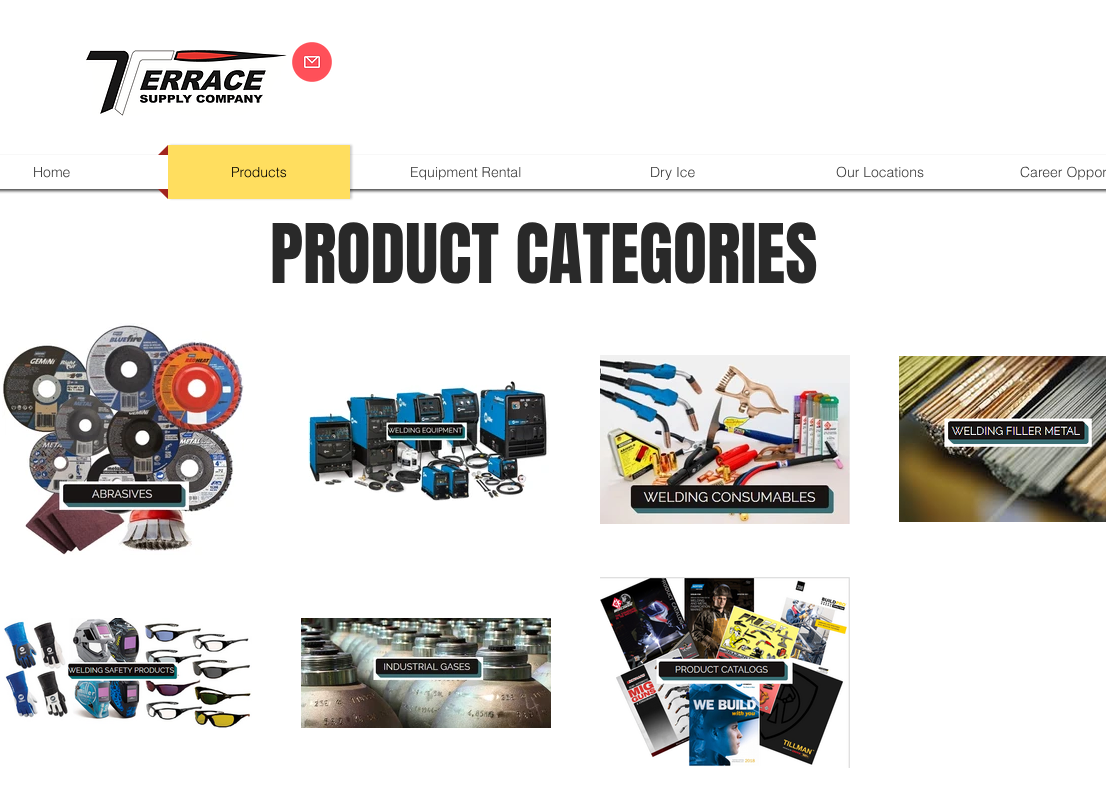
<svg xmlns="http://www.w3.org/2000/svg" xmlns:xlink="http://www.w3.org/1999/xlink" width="1106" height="786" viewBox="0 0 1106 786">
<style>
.cls-1{font:300 14px helvetica;fill:#383838}
.cls-2{font:300 14px helvetica;fill:#000000}
.cls-3{font:70px Anton;fill:#292929}
</style>
<defs>
<clipPath id="clip1"><path d="M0 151H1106V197H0ZM-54 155H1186V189H-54Z" clip-rule="evenodd"/></clipPath>
</defs>
<rect width="100%" height="100%" fill="#ffffff"/>
<image xlink:href="image0.png" x="86" y="50" width="201" height="66"/>
<image xlink:href="image1.png" x="292" y="42" width="40" height="40"/>
<g clip-path="url(#clip1)">
<rect fill="#000000" fill-opacity="0.7" filter="blur(1.5px)" x="-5" y="157" width="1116" height="34"/>
</g>
<rect fill="#000000" fill-opacity="0.2" filter="blur(1px)" x="170" y="145" width="182" height="54"/>
<path fill="#a1241f" d="M168 155H158L168 145ZM158 189H168V199Z"/>
<rect fill="#ffde5f" x="168" y="145" width="182" height="54"/>
<image xlink:href="image2.png" x="2" y="323" width="242" height="232"/>
<image xlink:href="image3.png" x="308" y="381" width="241" height="120"/>
<image xlink:href="image4.png" x="600" y="355" width="250" height="169"/>
<image xlink:href="image5.png" x="899" y="356" width="207" height="166"/>
<image xlink:href="image6.png" x="4" y="618" width="248" height="110"/>
<image xlink:href="image7.png" x="301" y="618" width="250" height="110"/>
<image xlink:href="image8.png" x="600" y="577" width="250" height="191"/>
<text class="cls-1" x="33" y="177">Home</text>
<text class="cls-2" x="231" y="177">Products</text>
<text class="cls-1" x="410" y="177">Equipment Rental</text>
<text class="cls-1" x="650" y="177">Dry Ice</text>
<text class="cls-1" x="836" y="177">Our Locations</text>
<text class="cls-1" x="1020" y="177">Career Oppor</text>
<text class="cls-3" x="270" y="283">PRODUCT CATEGORIES</text>
</svg>
